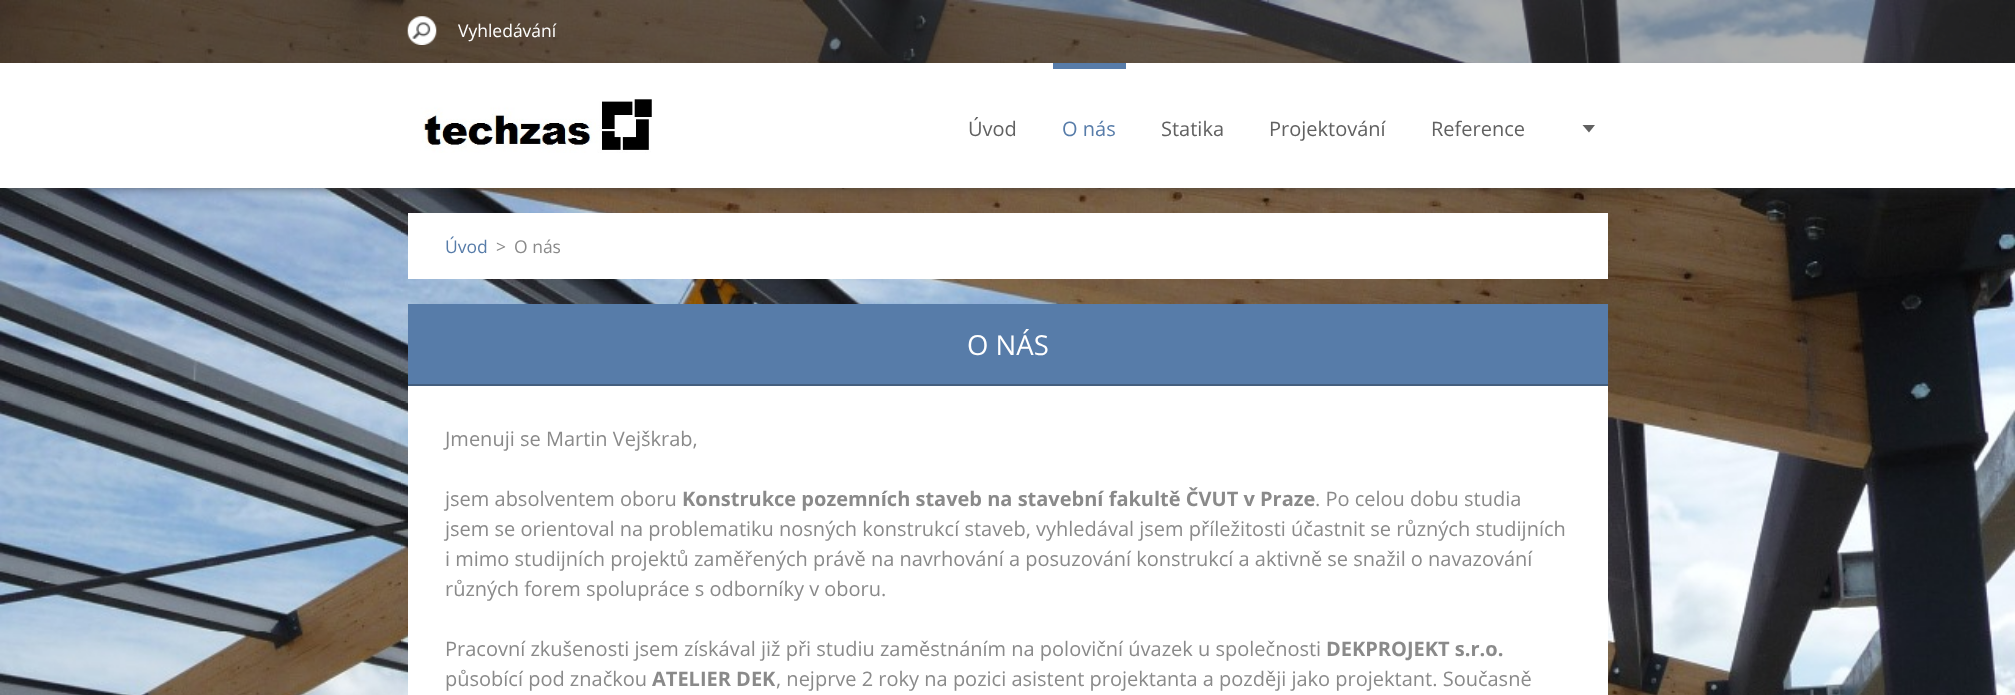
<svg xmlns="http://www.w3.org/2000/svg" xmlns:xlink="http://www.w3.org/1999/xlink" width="2015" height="695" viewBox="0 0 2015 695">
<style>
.cls-1{font:17.5px Open Sans;fill:#ffffff}
.cls-2{font:20px Open Sans;fill:#616161}
.cls-3{font:20px Open Sans;fill:#577ca9}
.cls-4{font:17.5px Open Sans;fill:#577ca9}
.cls-5{font:17.5px Open Sans;fill:#8a8a8a}
.cls-6{font:27.5px Open Sans;fill:#ffffff}
.cls-7{font:20px Open Sans;fill:#8a8a8a}
.cls-8{font:bold 20px Open Sans;fill:#8a8a8a}
</style>
<rect width="100%" height="100%" fill="#ffffff"/>
<image xlink:href="image0.png" x="0" y="0" width="2015" height="695"/>
<rect fill="#353535" fill-opacity="0.4" x="0" y="0" width="2015" height="63"/>
<image xlink:href="image1.png" x="407" y="16" width="30" height="29"/>
<rect fill="#353535" filter="blur(6px)" x="8" y="75" width="2000" height="110"/>
<rect fill="#ffffff" x="0" y="63" width="2015" height="125"/>
<image xlink:href="image2.png" x="420" y="99" width="234" height="54"/>
<rect fill="#577ca9" x="1053" y="63" width="73" height="6"/>
<path fill="#616161" d="M1582.5 125H1595L1589 132.5Z"/>
<rect fill="#ffffff" x="408" y="213" width="1200" height="66"/>
<rect fill="#577ca9" x="408" y="304" width="1200" height="80"/>
<rect fill="#445f7f" x="408" y="384" width="1200" height="2"/>
<rect fill="#ffffff" x="408" y="386" width="1200" height="309"/>
<text class="cls-1" x="458" y="37">Vyhledávání</text>
<text class="cls-2" x="968" y="136">Úvod</text>
<text class="cls-3" x="1062" y="136">O nás</text>
<text class="cls-2" x="1161" y="136">Statika</text>
<text class="cls-2" x="1269" y="136">Projektování</text>
<text class="cls-2" x="1431" y="136">Reference</text>
<text class="cls-4" x="445" y="253">Úvod</text>
<text class="cls-5" x="496" y="253">&gt;</text>
<text class="cls-5" x="514" y="253">O nás</text>
<text class="cls-6" x="967" y="355">O NÁS</text>
<text class="cls-7" x="445" y="446">Jmenuji se Martin Vejškrab,</text>
<text class="cls-7" x="445" y="506">jsem absolventem oboru</text>
<text class="cls-8" x="682" y="506">Konstrukce pozemních staveb na stavební fakultě ČVUT v Praze</text>
<text class="cls-7" x="1315" y="506">. Po celou dobu studia</text>
<text class="cls-7"><tspan x="445" y="536">jsem se orientoval na problematiku nosných konstrukcí staveb, vyhledával jsem příležitosti účastnit se různých studijních</tspan><tspan x="445" y="566">i mimo studijních projektů zaměřených právě na navrhování a posuzování konstrukcí a aktivně se snažil o navazování</tspan><tspan x="445" y="596">různých forem spolupráce s odborníky v oboru.</tspan></text>
<text class="cls-7" x="445" y="656">Pracovní zkušenosti jsem získával již při studiu zaměstnáním na poloviční úvazek u společnosti</text>
<text class="cls-8" x="1326" y="656">DEKPROJEKT s.r.o.</text>
<text class="cls-7" x="445" y="686">působící pod značkou</text>
<text class="cls-8" x="652" y="686">ATELIER DEK</text>
<text class="cls-7" x="776" y="686">, nejprve 2 roky na pozici asistent projektanta a později jako projektant. Současně</text>
</svg>
